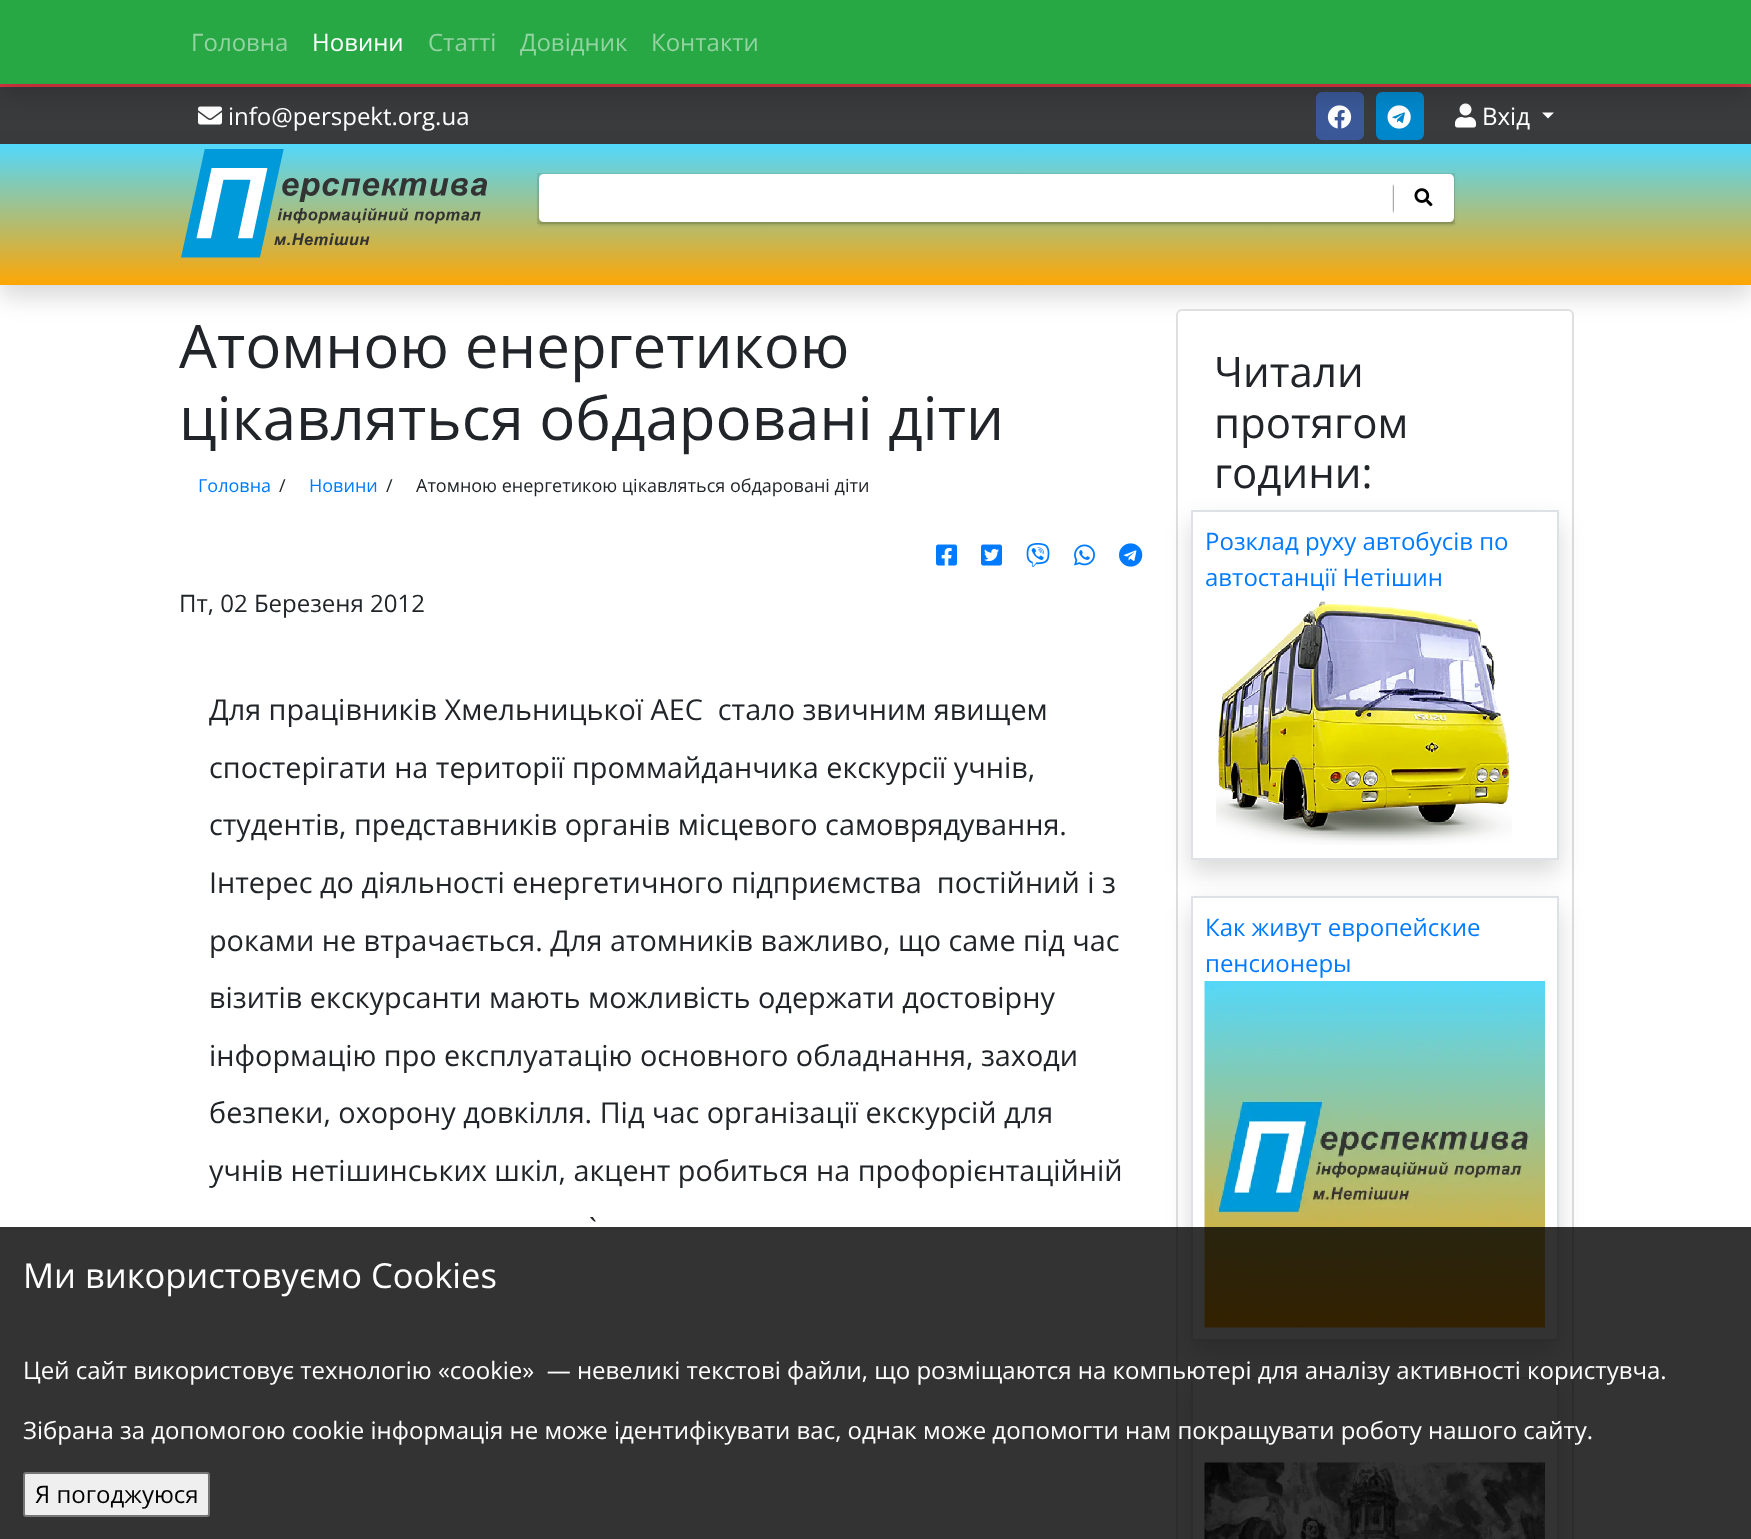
<svg xmlns="http://www.w3.org/2000/svg" xmlns:xlink="http://www.w3.org/1999/xlink" width="1751" height="1539" viewBox="0 0 1751 1539">
<style>
.cls-1{font:24px Open Sans;fill:#94d3a2}
.cls-2{font:24px Open Sans;fill:#ffffff}
.cls-3{font:60px Open Sans;fill:#212529}
.cls-4{font:18px Open Sans;fill:#007bff}
.cls-5{font:18px Open Sans;fill:#212529}
.cls-6{font:24px Open Sans;fill:#212529}
.cls-7{font:28.8px Open Sans;fill:#212529}
.cls-8{font:42px Open Sans;fill:#212529}
.cls-9{font:24px Open Sans;fill:#007bff}
.cls-10{font:34.5px Open Sans;fill:#ffffff}
.cls-11{font:24px Open Sans;fill:#000000}
</style>
<defs>
<linearGradient id="g1" gradientUnits="userSpaceOnUse" x1="876" y1="144" x2="876" y2="285"><stop offset="0" stop-color="#52d8fc"/><stop offset="1" stop-color="#fea604"/></linearGradient>
<clipPath id="clip1"><path d="M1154 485H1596V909H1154ZM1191 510H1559V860H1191Z" clip-rule="evenodd"/></clipPath>
<clipPath id="clip2"><path d="M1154 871H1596V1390H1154ZM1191 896H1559V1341H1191Z" clip-rule="evenodd"/></clipPath>
<clipPath id="clip3"><path d="M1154 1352H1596V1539H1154ZM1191 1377H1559V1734H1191Z" clip-rule="evenodd"/></clipPath>
</defs>
<rect width="100%" height="100%" fill="#ffffff"/>
<rect fill="#3a3b3c" x="0" y="87" width="1751" height="57"/>
<rect fill="#dc3545" x="0" y="84" width="1751" height="3"/>
<image xlink:href="image0.png" x="198" y="106" width="24" height="19"/>
<rect fill="#3b5999" x="1316" y="92" width="48" height="48" rx="6"/>
<image xlink:href="image1.png" x="1327" y="105" width="25" height="24"/>
<rect fill="#0088cc" x="1376" y="92" width="48" height="48" rx="6"/>
<image xlink:href="image2.png" x="1387" y="105" width="24" height="24"/>
<image xlink:href="image3.png" x="1455" y="103" width="21" height="25"/>
<path fill="#ffffff" d="M1542 112.5H1554L1548 118.5Z"/>
<rect fill="#000000" fill-opacity="0.15" filter="blur(12px)" x="0" y="12" width="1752" height="84"/>
<rect fill="#28a745" x="0" y="0" width="1751" height="84"/>
<rect fill="#000000" fill-opacity="0.15" filter="blur(12px)" x="0" y="156" width="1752" height="141"/>
<rect fill="url(#g1)" x="0" y="144" width="1751" height="141"/>
<image xlink:href="image4.png" x="181" y="149" width="306" height="109"/>
<rect fill="none" stroke="#000000" stroke-opacity="0.08" stroke-width="2" x="538" y="174" width="916" height="49"/>
<rect fill="#000000" fill-opacity="0.16" filter="blur(1.5px)" x="539" y="177" width="915" height="48"/>
<path fill="#ffffff" d="M544 174H1394V222H544C541 222 539 220 539 217V179C539 176 541 174 544 174Z"/>
<rect fill="#000000" filter="blur(1px)" x="1394" y="185" width="39" height="27"/>
<path fill="#ffffff" d="M1394 174H1449C1452 174 1454 176 1454 179V217C1454 220 1452 222 1449 222H1394Z"/>
<image xlink:href="image5.png" x="1414" y="188" width="19" height="19"/>
<image xlink:href="image6.png" x="936" y="544" width="21" height="22"/>
<image xlink:href="image7.png" x="981" y="544" width="21" height="22"/>
<image xlink:href="image8.png" x="1026" y="543" width="24" height="24"/>
<image xlink:href="image9.png" x="1074" y="544" width="21" height="22"/>
<image xlink:href="image10.png" x="1119" y="543" width="24" height="24"/>
<rect fill="#ffffff" stroke="#dfdfdf" stroke-width="2" x="1177" y="310" width="396" height="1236" rx="5"/>
<g clip-path="url(#clip1)">
<rect fill="#000000" fill-opacity="0.15" filter="blur(12px)" x="1191" y="522" width="368" height="350"/>
</g>
<rect fill="none" stroke="#dee2e6" stroke-width="2" x="1192" y="511" width="366" height="348"/>
<image xlink:href="image11.png" x="1216" y="601" width="296" height="244"/>
<g clip-path="url(#clip2)">
<rect fill="#000000" fill-opacity="0.15" filter="blur(12px)" x="1191" y="908" width="368" height="445"/>
</g>
<rect fill="none" stroke="#dee2e6" stroke-width="2" x="1192" y="897" width="366" height="443"/>
<image xlink:href="image12.png" x="1204" y="981" width="341" height="347"/>
<g clip-path="url(#clip3)">
<rect fill="#000000" fill-opacity="0.15" filter="blur(12px)" x="1191" y="1389" width="368" height="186"/>
</g>
<rect fill="none" stroke="#dee2e6" stroke-width="2" x="1192" y="1378" width="366" height="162"/>
<image xlink:href="image13.png" x="1204" y="1462" width="341" height="77"/>
<rect fill="#000000" fill-opacity="0.8" x="0" y="1227" width="1751" height="312"/>
<rect fill="#efefef" stroke="#767676" stroke-width="2" x="24" y="1473" width="185" height="43" rx="2"/>
<text class="cls-1" x="191" y="51">Головна</text>
<text class="cls-2" x="312" y="51">Новини</text>
<text class="cls-1" x="428" y="51">Статті</text>
<text class="cls-1" x="520" y="51">Довідник</text>
<text class="cls-1" x="651" y="51">Контакти</text>
<text class="cls-2" x="228" y="125">info@perspekt.org.ua</text>
<text class="cls-2" x="1482" y="125">Вхід</text>
<text class="cls-3"><tspan x="179" y="368">Атомною енергетикою</tspan><tspan x="179" y="440">цiкавляться обдарованi дiти</tspan></text>
<text class="cls-4" x="198" y="492">Головна</text>
<text class="cls-5" x="279" y="492">/</text>
<text class="cls-4" x="309" y="492">Новини</text>
<text class="cls-5" x="386" y="492">/</text>
<text class="cls-5" x="416" y="492">Атомною енергетикою цiкавляться обдарованi дiти</text>
<text class="cls-6" x="179" y="612">Пт, 02 Березеня 2012</text>
<text class="cls-7" xml:space="preserve" x="209" y="720">Для працівників Хмельницької АЕС  стало звичним явищем</text>
<text class="cls-7"><tspan x="209" y="778">спостерігати на території проммайданчика екскурсії учнів,</tspan><tspan x="209" y="835">студентів, представників органів місцевого самоврядування.</tspan></text>
<text class="cls-7" xml:space="preserve" x="209" y="893">Інтерес до діяльності енергетичного підприємства  постійний і з</text>
<text class="cls-7"><tspan x="209" y="951">роками не втрачається. Для атомників важливо, що саме під час</tspan><tspan x="209" y="1008">візитів екскурсанти мають можливість одержати достовірну</tspan></text>
<text class="cls-7"><tspan x="209" y="1066">інформацію про експлуатацію основного обладнання, заходи</tspan><tspan x="209" y="1123">безпеки, охорону довкілля. Під час організації екскурсій для</tspan></text>
<text class="cls-7" x="209" y="1181">учнів нетішинських шкіл, акцент робиться на профорієнтаційній</text>
<text class="cls-7" x="589" y="1239">`</text>
<text class="cls-8"><tspan x="1214" y="387">Читали</tspan><tspan x="1214" y="438">протягом</tspan><tspan x="1214" y="488">години:</tspan></text>
<text class="cls-9"><tspan x="1205" y="550">Розклад руху автобусів по</tspan><tspan x="1205" y="586">автостанції Нетішин</tspan></text>
<text class="cls-9"><tspan x="1205" y="936">Как живут европейские</tspan><tspan x="1205" y="972">пенсионеры</tspan></text>
<text class="cls-10" x="23" y="1288">Ми використовуємо Cookies</text>
<text class="cls-2" xml:space="preserve" x="23" y="1379">Цей сайт використовує технологію «cookie»  — невеликі текстові файли, що розміщаются на компьютері для аналізу активності користувча.</text>
<text class="cls-2" x="23" y="1439">Зібрана за допомогою cookie інформація не може ідентифікувати вас, однак може допомогти нам покращувати роботу нашого сайту.</text>
<text class="cls-11" x="35" y="1503">Я погоджуюся</text>
</svg>
